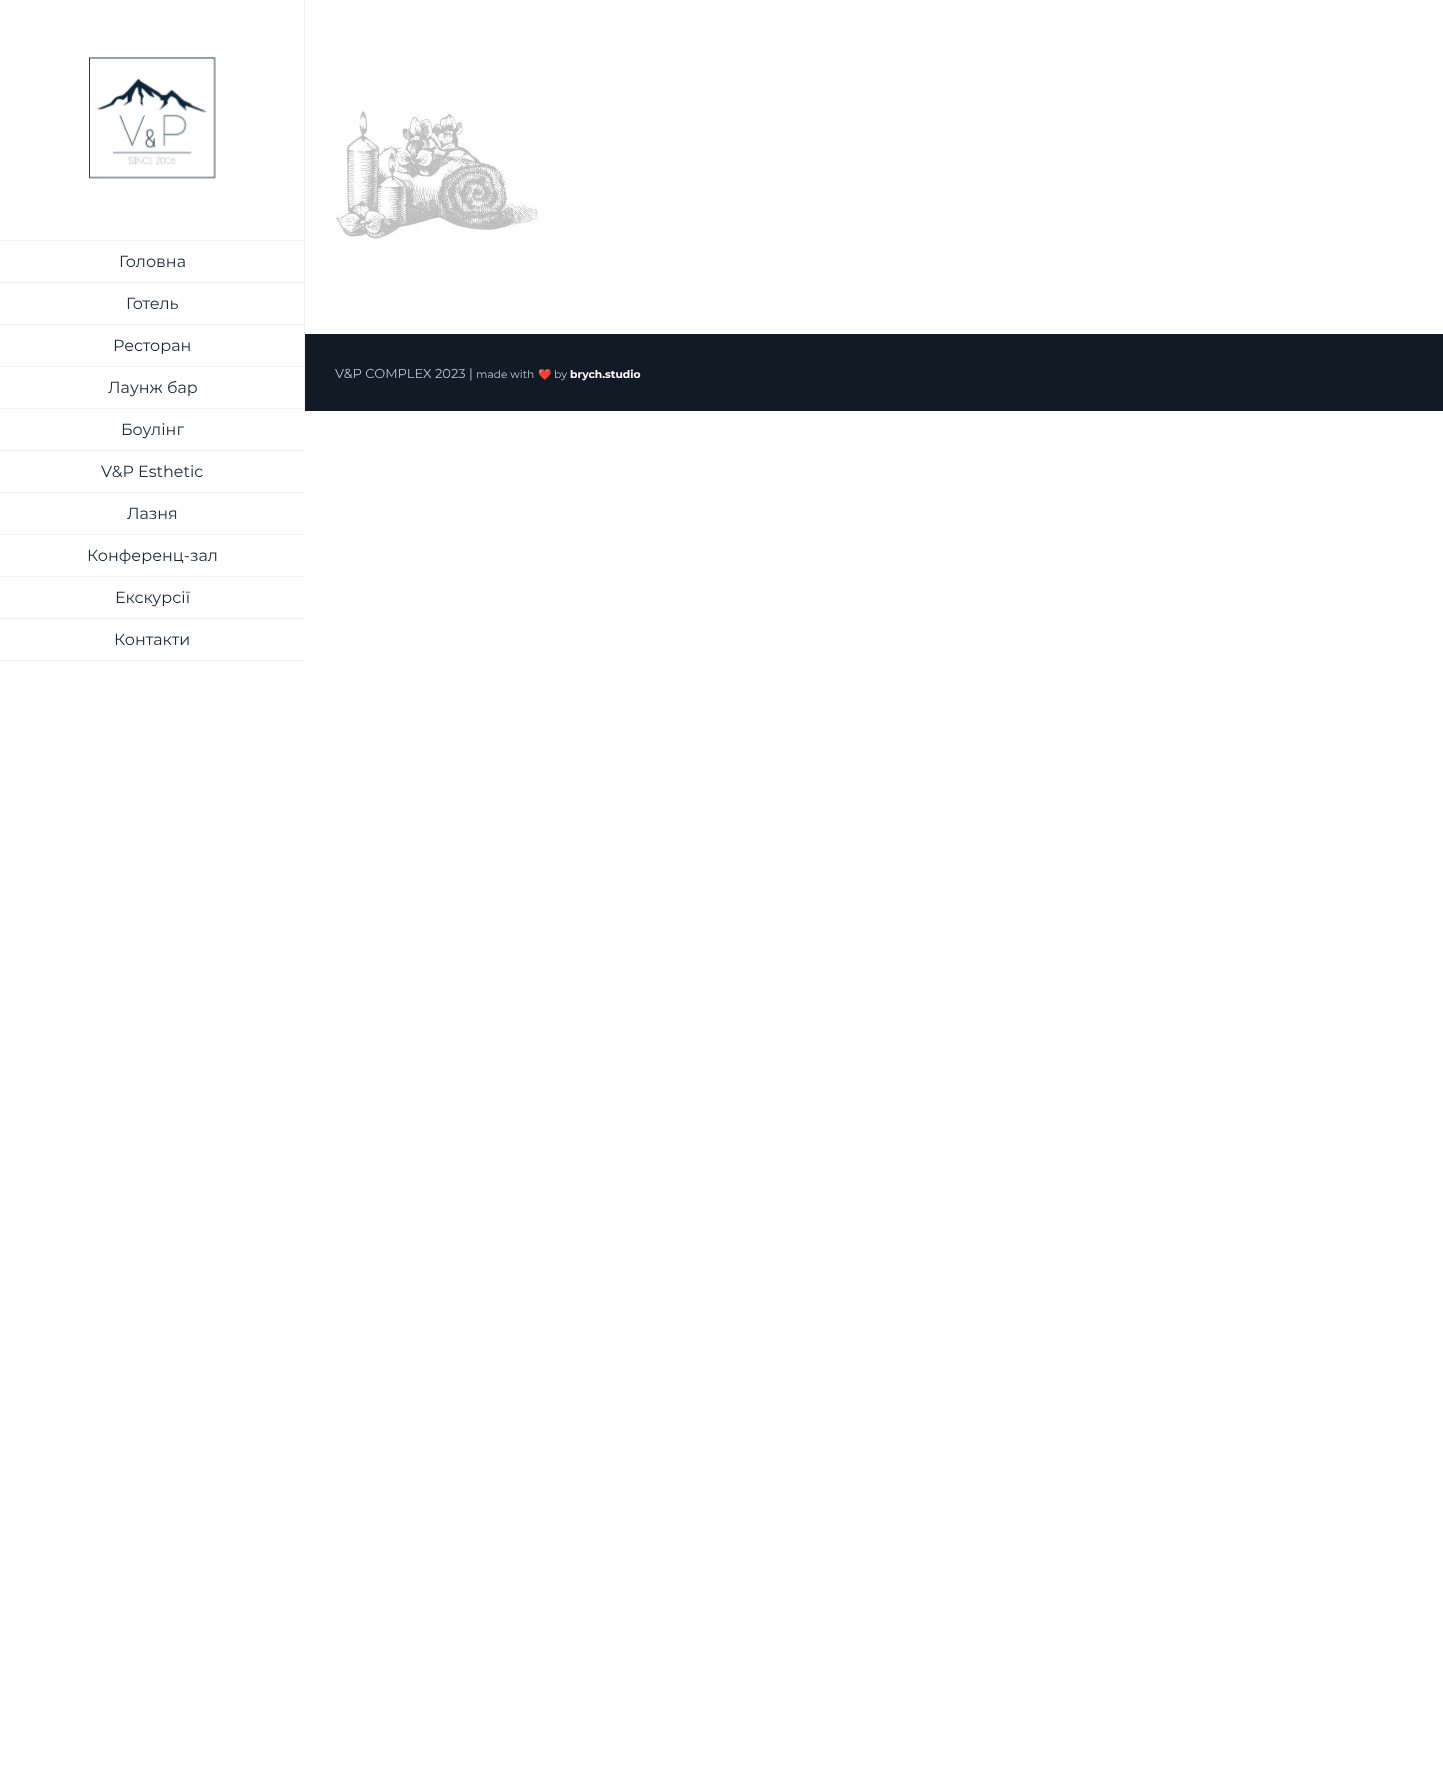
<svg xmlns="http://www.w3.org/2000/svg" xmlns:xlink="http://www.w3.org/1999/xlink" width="1443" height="1773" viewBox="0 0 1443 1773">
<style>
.cls-1{font:16px Montserrat;fill:#1d2939}
.cls-2{font:13px Montserrat;fill:#b6c0ce}
.cls-3{font:10.75px Montserrat;fill:#b6c0ce}
.cls-4{font:10.75px Noto Color Emoji;fill:#b6c0ce}
.cls-5{font:bold 10.75px Montserrat;fill:#ffffff}
</style>
<rect width="100%" height="100%" fill="#ffffff"/>
<image xlink:href="image0.png" x="335" y="111" width="204" height="128"/>
<rect fill="#f2f2f2" x="304" y="0" width="1" height="411"/>
<image xlink:href="image1.png" x="89" y="57" width="127" height="122"/>
<rect fill="#f2f2f2" x="0" y="240" width="305" height="1"/>
<rect fill="#f2f2f2" x="0" y="282" width="305" height="1"/>
<rect fill="#f2f2f2" x="0" y="324" width="305" height="1"/>
<rect fill="#f2f2f2" x="0" y="366" width="305" height="1"/>
<rect fill="#f2f2f2" x="0" y="408" width="305" height="1"/>
<rect fill="#f2f2f2" x="0" y="450" width="305" height="1"/>
<rect fill="#f2f2f2" x="0" y="492" width="305" height="1"/>
<rect fill="#f2f2f2" x="0" y="534" width="305" height="1"/>
<rect fill="#f2f2f2" x="0" y="576" width="305" height="1"/>
<rect fill="#f2f2f2" x="0" y="618" width="305" height="1"/>
<rect fill="#f2f2f2" x="0" y="660" width="305" height="1"/>
<rect fill="#121a26" x="305" y="334" width="1138" height="77"/>
<text class="cls-1" x="119" y="267">Головна</text>
<text class="cls-1" x="126" y="309">Готель</text>
<text class="cls-1" x="113" y="351">Ресторан</text>
<text class="cls-1" x="108" y="393">Лаунж бар</text>
<text class="cls-1" x="121" y="435">Боулінг</text>
<text class="cls-1" x="101" y="477">V&amp;P Esthetic</text>
<text class="cls-1" x="127" y="519">Лазня</text>
<text class="cls-1" x="87" y="561">Конференц-зал</text>
<text class="cls-1" x="115" y="603">Екскурсії</text>
<text class="cls-1" x="114" y="645">Контакти</text>
<text class="cls-2" x="335" y="378">V&amp;P COMPLEX 2023 |</text>
<text class="cls-3" x="476" y="378">made with</text>
<text class="cls-4" x="538" y="378">❤️</text>
<text class="cls-3" x="554" y="378">by</text>
<text class="cls-5" x="570" y="378">brych.studio</text>
</svg>
